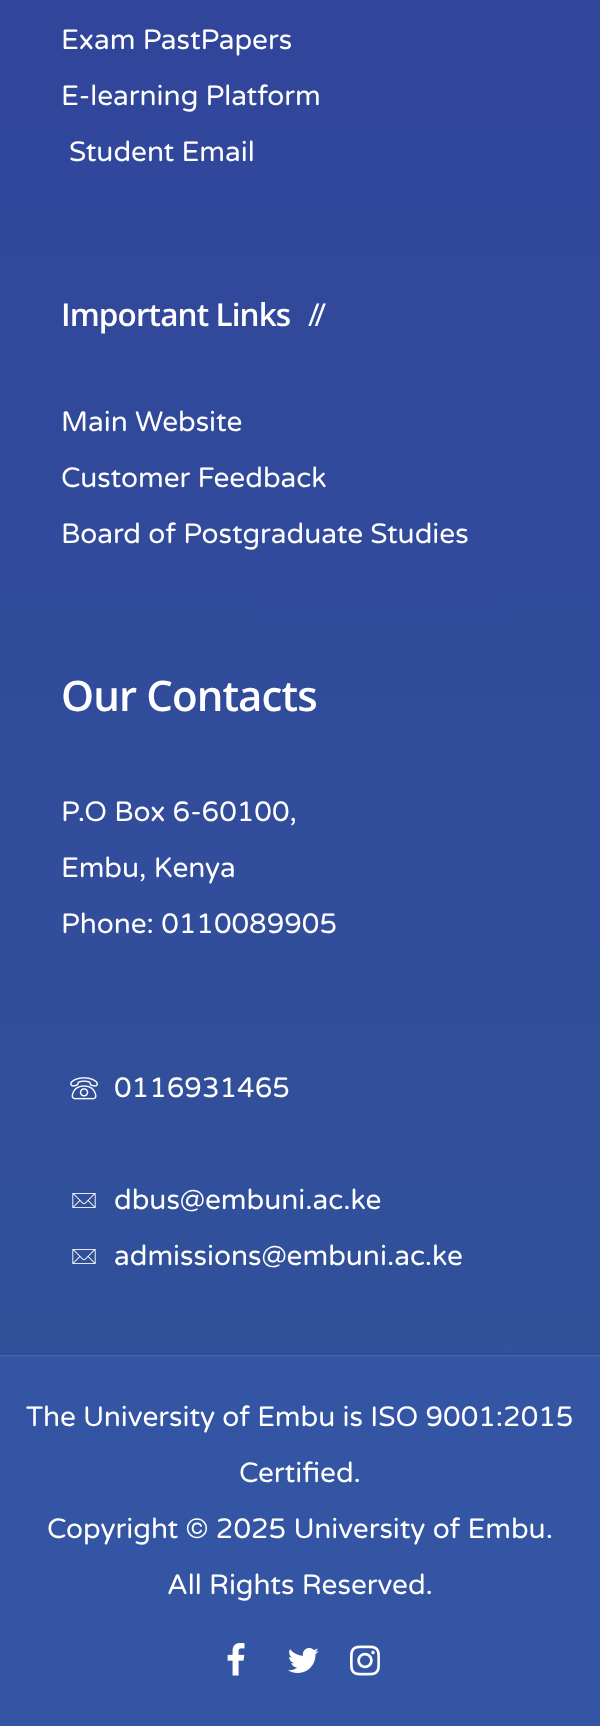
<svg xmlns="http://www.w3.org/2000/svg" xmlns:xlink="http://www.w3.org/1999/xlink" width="600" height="1726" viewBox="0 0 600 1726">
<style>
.cls-1{font:28px Varela Round;fill:#ffffff}
.cls-2{font:600 31.5px Open Sans;letter-spacing:-0.9px;fill:#ffffff}
.cls-3{font:31.5px Open Sans;letter-spacing:-5px;fill:#ffffff}
.cls-4{font:600 42px Open Sans;letter-spacing:-0.9px;fill:#ffffff}
</style>
<defs>
<linearGradient id="g1" gradientUnits="userSpaceOnUse" x1="300" y1="-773" x2="300" y2="1355"><stop offset="0" stop-color="#313f9b"/><stop offset="1" stop-color="#31519b"/></linearGradient>
</defs>
<rect width="100%" height="100%" fill="#ffffff"/>
<rect fill="url(#g1)" x="0" y="0" width="600" height="1355"/>
<image xlink:href="image0.png" x="70" y="1077" width="28" height="23"/>
<image xlink:href="image1.png" x="72" y="1193" width="24" height="15"/>
<image xlink:href="image1.png" x="72" y="1249" width="24" height="15"/>
<rect fill="#2c498c" x="0" y="1353" width="600" height="1"/>
<rect fill="#3355a3" x="0" y="1357" width="600" height="369"/>
<rect fill="#3d5ea8" x="0" y="1355" width="600" height="2"/>
<image xlink:href="image2.png" x="227" y="1643" width="18" height="33"/>
<image xlink:href="image3.png" x="288" y="1648" width="31" height="25"/>
<image xlink:href="image4.png" x="350" y="1645" width="30" height="31"/>
<text class="cls-1" x="61" y="49">Exam PastPapers</text>
<text class="cls-1" x="61" y="105">E-learning Platform</text>
<text class="cls-1" x="69" y="161">Student Email</text>
<text class="cls-2" x="61" y="326">Important Links</text>
<text class="cls-3" x="308" y="326">//</text>
<text class="cls-1" x="61" y="431">Main Website</text>
<text class="cls-1" x="61" y="487">Customer Feedback</text>
<text class="cls-1" x="61" y="543">Board of Postgraduate Studies</text>
<text class="cls-4" x="61" y="711">Our Contacts</text>
<text class="cls-1" x="61" y="821">P.O Box 6-60100,</text>
<text class="cls-1" x="61" y="877">Embu, Kenya</text>
<text class="cls-1" x="61" y="933">Phone: 0110089905</text>
<text class="cls-1" x="114" y="1097">0116931465</text>
<text class="cls-1" x="114" y="1209">dbus@embuni.ac.ke</text>
<text class="cls-1" x="114" y="1265">admissions@embuni.ac.ke</text>
<text class="cls-1" x="26" y="1426">The University of Embu is ISO 9001:2015</text>
<text class="cls-1" x="239" y="1482">Certified.</text>
<text class="cls-1" x="47" y="1538">Copyright © 2025 University of Embu.</text>
<text class="cls-1" x="167" y="1594">All Rights Reserved.</text>
</svg>
